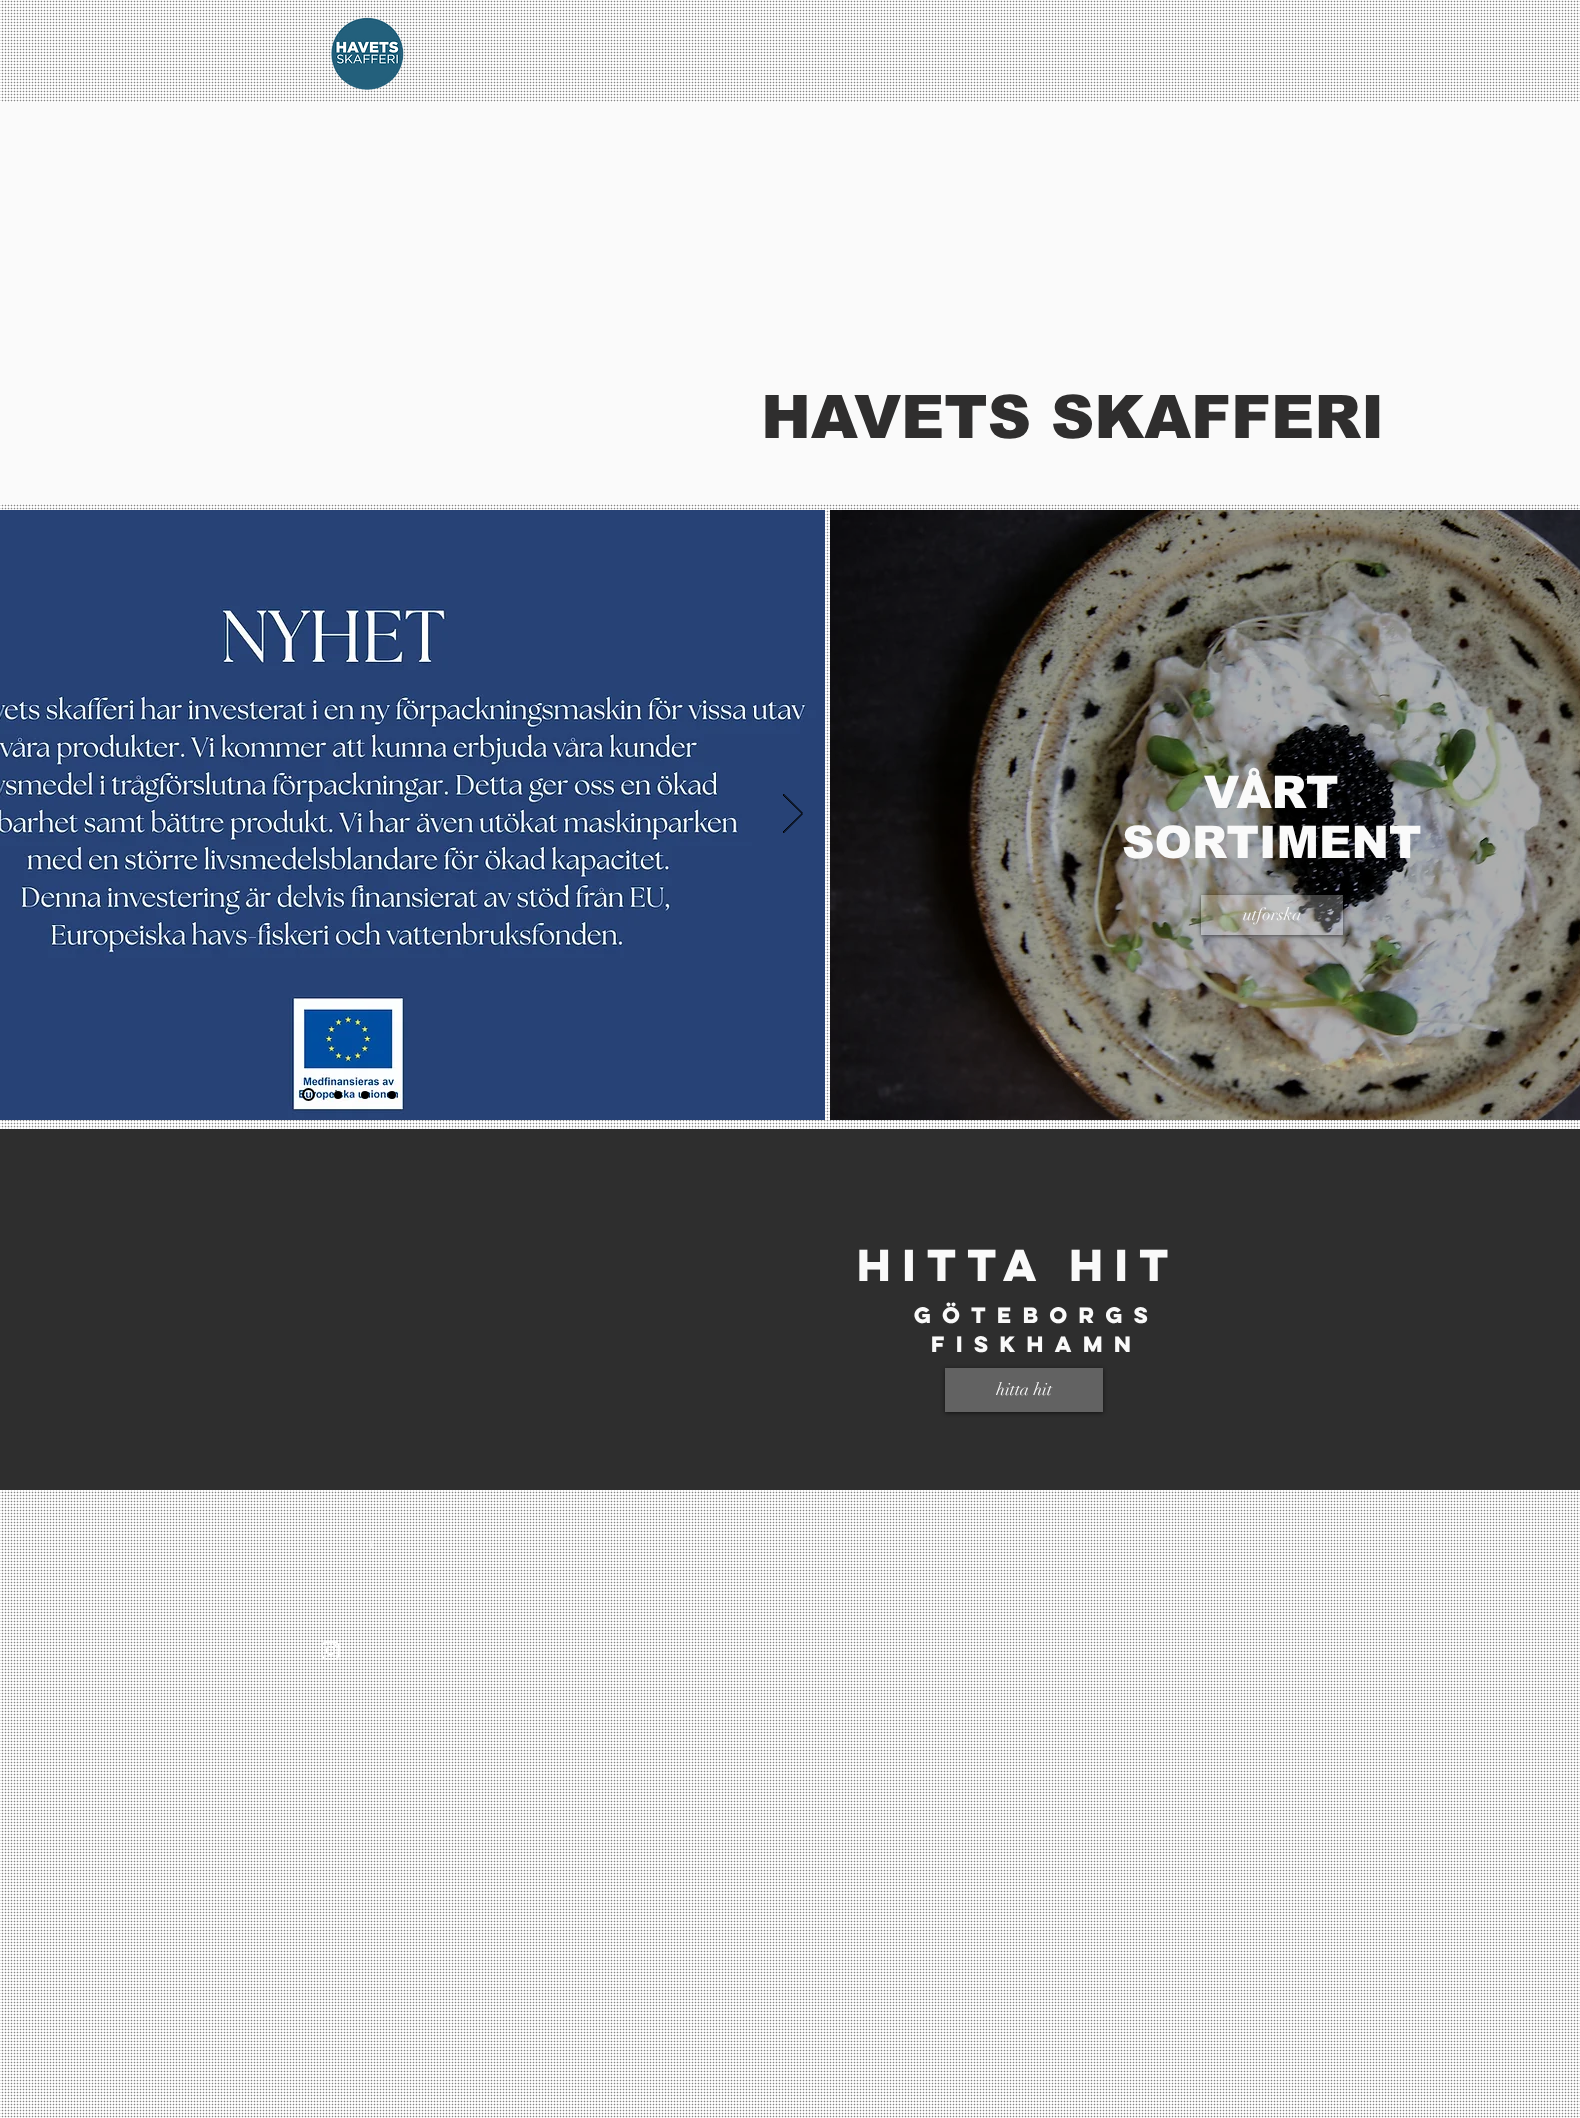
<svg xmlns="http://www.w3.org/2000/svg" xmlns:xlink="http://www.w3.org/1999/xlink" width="1580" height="2118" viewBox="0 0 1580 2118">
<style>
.cls-1{font:900 60px arial;fill:#2f2e2e}
.cls-2{font:900 45px arial;fill:#fafafa}
.cls-3{font:17px didot;fill:#fafafa}
.cls-4{font:bold 40px 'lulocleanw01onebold';letter-spacing:2.75px;fill:#fafafa}
.cls-5{font:bold 20px 'lulocleanw01onebold';letter-spacing:7px;fill:#fafafa}
.cls-6{font:300 11px 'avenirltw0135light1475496';fill:#fafafa}
</style>
<defs>
<clipPath id="clip1"><rect x="783" y="794" width="20" height="39"/></clipPath>
<clipPath id="clip2"><path d="M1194 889H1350V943H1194ZM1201 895H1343V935H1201Z" clip-rule="evenodd"/></clipPath>
</defs>
<rect width="100%" height="100%" fill="#ffffff"/>
<image xlink:href="image0.png" x="0" y="0" width="1580" height="2118"/>
<image xlink:href="image1.png" x="331" y="17" width="73" height="73"/>
<rect fill="#fafafa" x="0" y="102" width="1580" height="402"/>
<image xlink:href="image2.png" x="0" y="510" width="825" height="610"/>
<g clip-path="url(#clip1)">
<path fill="none" stroke="#000000" d="M783.5 833L803 813.5L783.5 794L783 795L802 813.5L783 832Z"/>
</g>
<circle fill="none" stroke="#000000" stroke-width="2" cx="308.5" cy="1094.5" r="5.5"/>
<circle fill="#000000" cx="338" cy="1095" r="4"/>
<circle fill="#000000" cx="365" cy="1095" r="4"/>
<circle fill="#000000" cx="392" cy="1095" r="4"/>
<rect fill="#000000" x="830" y="510" width="750" height="610"/>
<image xlink:href="image3.png" x="830" y="510" width="750" height="610"/>
<g clip-path="url(#clip2)">
<rect fill="#000000" fill-opacity="0.6" filter="blur(2px)" x="1201" y="896" width="142" height="40"/>
</g>
<rect fill="#ffffff" fill-opacity="0.25" x="1201" y="895" width="142" height="40"/>
<rect fill="#2e2e2e" x="0" y="1129" width="1580" height="361"/>
<rect fill="#000000" fill-opacity="0.6" filter="blur(2px)" x="945" y="1369" width="158" height="44"/>
<rect fill="#626262" x="945" y="1368" width="158" height="44"/>
<image xlink:href="image4.png" x="321" y="1641" width="19" height="19"/>
<text class="cls-1" x="761" y="438">HAVETS SKAFFERI</text>
<text class="cls-2" x="1204" y="808">VÅRT</text>
<text class="cls-2" x="1122" y="858">SORTIMENT</text>
<text class="cls-3" x="1243" y="920">utforska</text>
<text class="cls-4" x="857" y="1281">HITTA HIT</text>
<text class="cls-5" x="914" y="1323">GÖTEBORGS</text>
<text class="cls-5" x="931" y="1352">FISKHAMN</text>
<text class="cls-3" x="996" y="1395">hitta hit</text>
<text class="cls-6" x="370" y="1548">i</text>
</svg>
